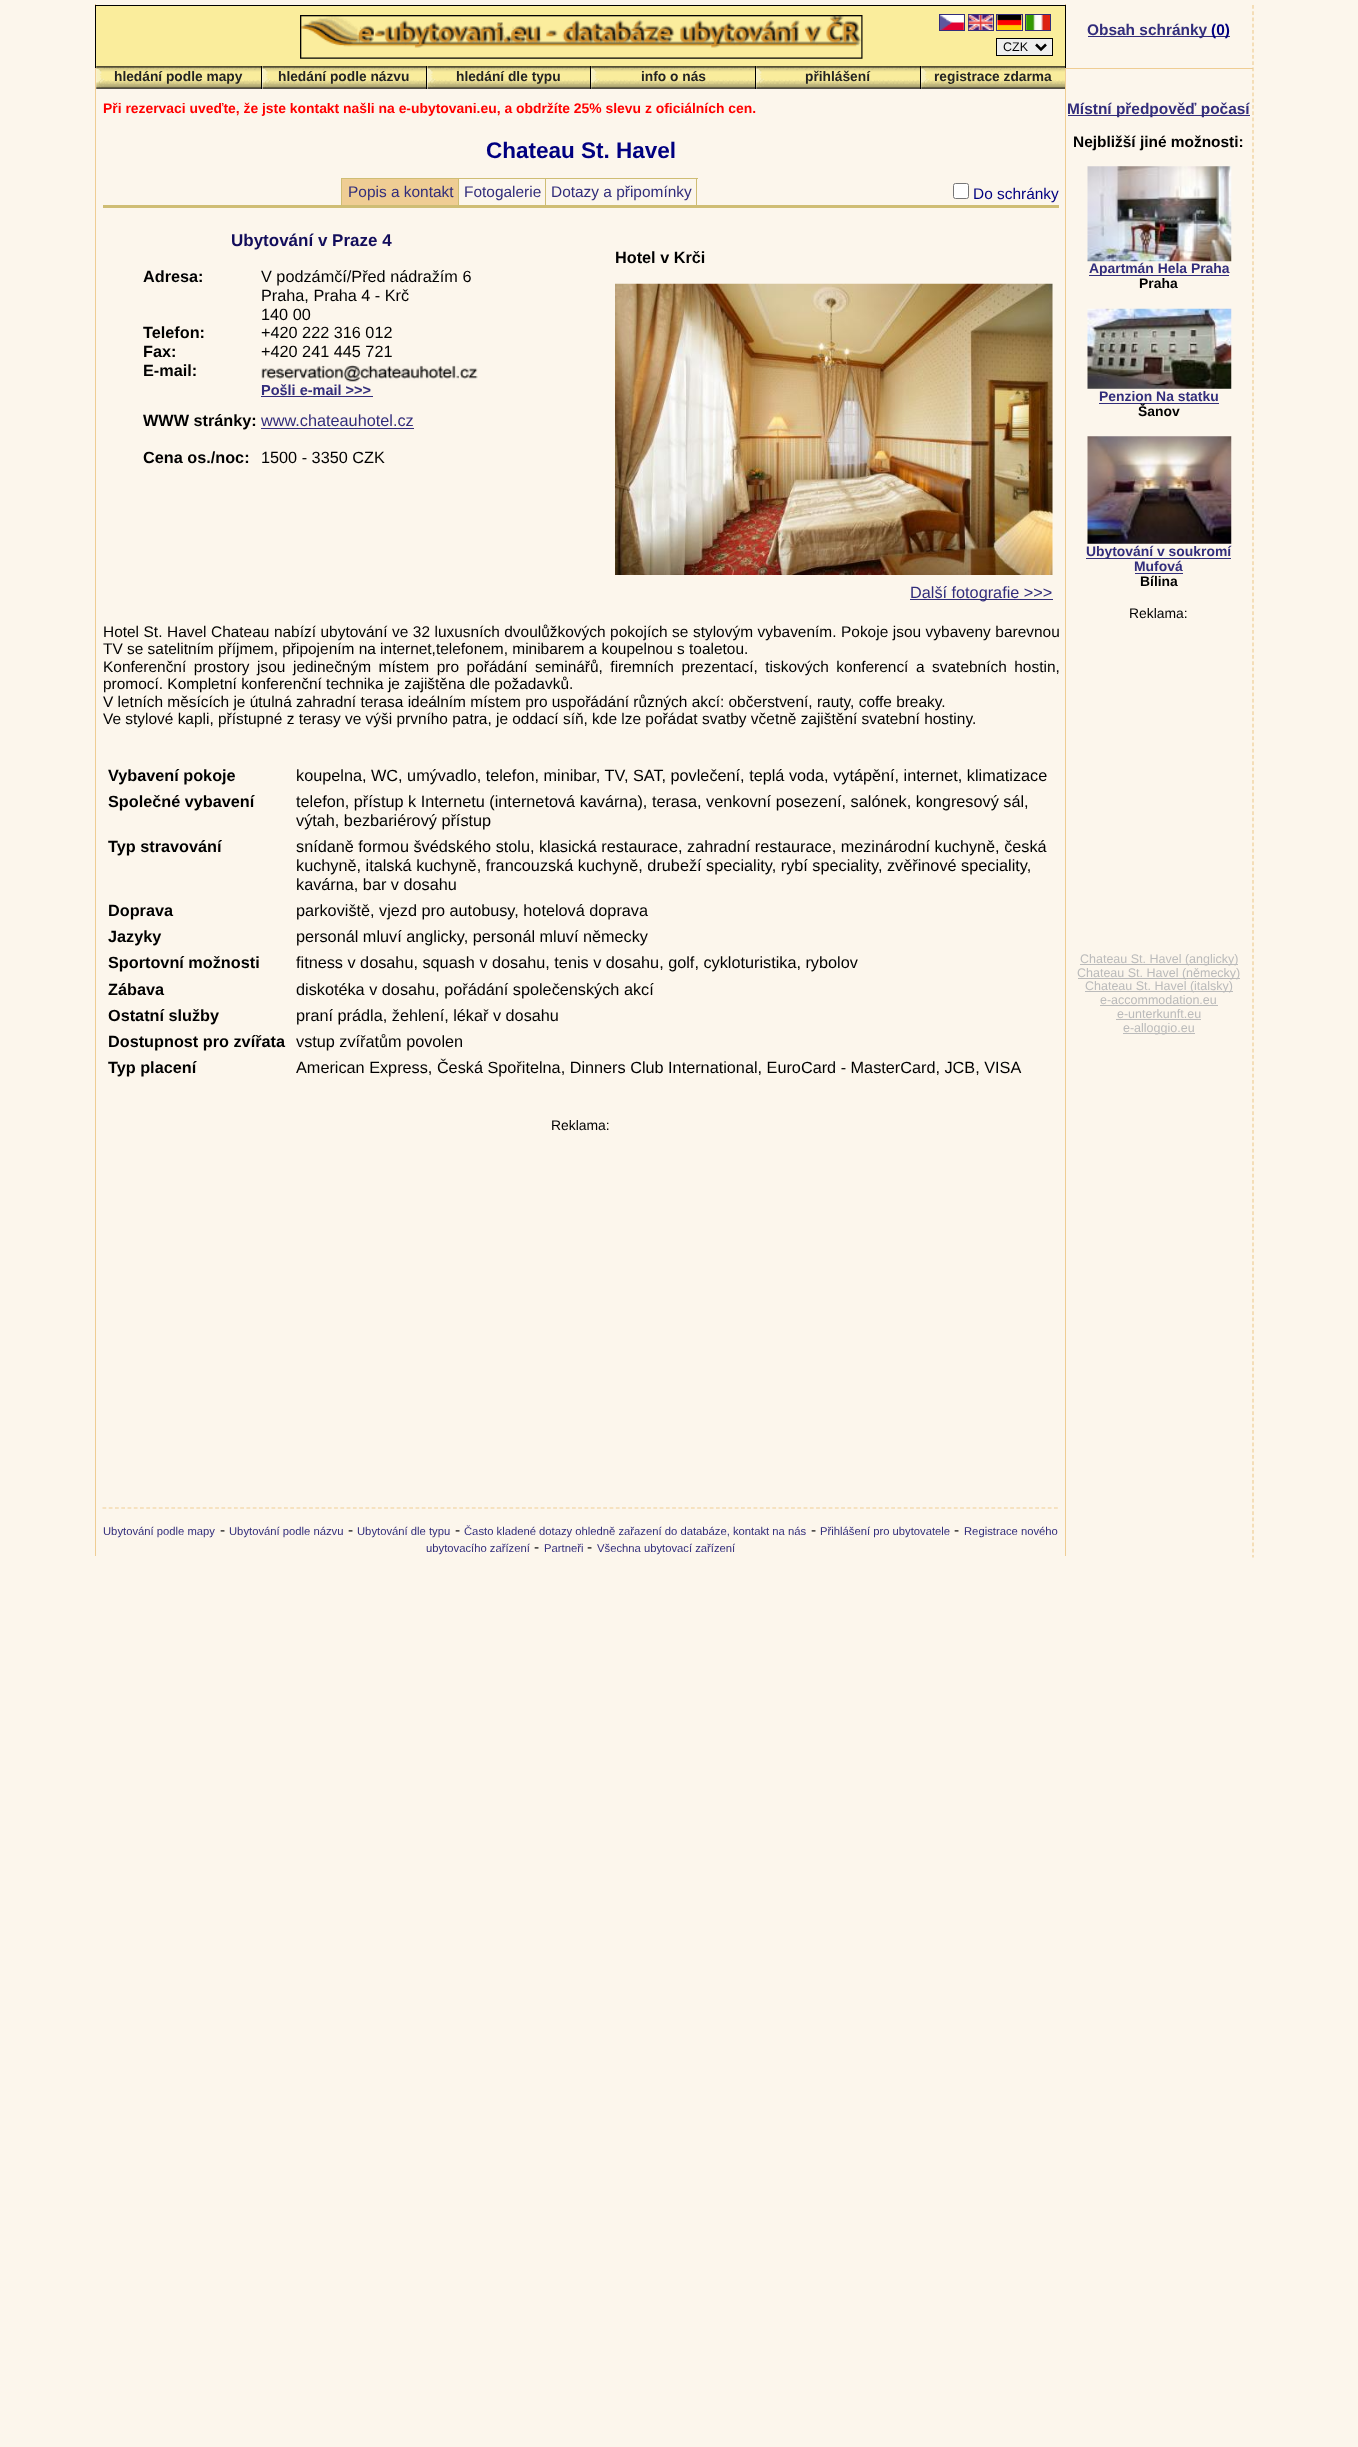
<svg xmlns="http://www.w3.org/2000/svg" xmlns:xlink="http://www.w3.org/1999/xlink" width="1358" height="2447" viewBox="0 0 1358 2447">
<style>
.cls-1{font:12.5px Liberation Sans;fill:#000000}
.cls-2{font:bold 15.45px Liberation Sans;fill:#322d7b}
.cls-3{font:bold 15.45px Liberation Sans;fill:#000080}
.cls-4{font:bold 15.45px Liberation Sans;fill:#000000}
.cls-5{font:bold 13.9px Liberation Sans;fill:#322d7b}
.cls-6{font:bold 13.9px Liberation Sans;fill:#000000}
.cls-7{font:13.9px Liberation Sans;fill:#000000}
.cls-8{font:12.5px Liberation Sans;fill:#bbbbbb}
.cls-9{font:bold 13.75px Liberation Sans;fill:#222222}
.cls-10{font:bold 13.9px Liberation Sans;fill:#ff0000}
.cls-11{font:bold 22.5px Liberation Sans;fill:#000080}
.cls-12{font:15.45px Liberation Sans;fill:#322d7b}
.cls-13{font:15.45px Liberation Sans;fill:#000080}
.cls-14{font:bold 17px Liberation Sans;fill:#120d5b}
.cls-15{font:bold 16.25px Liberation Sans;fill:#000000}
.cls-16{font:16.25px Liberation Sans;fill:#000000}
.cls-17{font:bold 14.5px Liberation Sans;fill:#322d7b}
.cls-18{font:16.25px Liberation Sans;fill:#322d7b}
.cls-19{font:15.45px Liberation Sans;fill:#000000}
.cls-20{font:11.25px Liberation Sans;fill:#322d7b}
</style>
<rect width="100%" height="100%" fill="#fcf6ec"/>
<rect fill="#faed9c" x="96" y="6" width="969" height="62"/>
<rect fill="#efcd94" x="1065" y="4" width="1" height="1552"/>
<rect fill="#efcd94" x="95" y="4" width="1" height="1552"/>
<rect fill="#000000" x="95" y="5" width="971" height="1"/>
<rect fill="#000000" x="1065" y="5" width="1" height="63"/>
<rect fill="#000000" x="95" y="5" width="1" height="63"/>
<image xlink:href="image0.png" x="300" y="15" width="563" height="44"/>
<rect fill="none" stroke="#322d7b" x="939.5" y="14.5" width="25" height="16"/>
<image xlink:href="image1.png" x="940" y="15" width="24" height="15"/>
<rect fill="none" stroke="#322d7b" x="968.5" y="14.5" width="25" height="16"/>
<image xlink:href="image2.png" x="968" y="15" width="25" height="15"/>
<rect fill="none" stroke="#322d7b" x="996.5" y="14.5" width="26" height="16"/>
<image xlink:href="image3.png" x="997" y="15" width="25" height="15"/>
<rect fill="none" stroke="#322d7b" x="1025.5" y="14.5" width="25" height="16"/>
<image xlink:href="image4.png" x="1026" y="15" width="24" height="15"/>
<rect fill="#efefef" stroke="#000000" x="996.5" y="38.5" width="56" height="17"/>
<path fill="none" stroke="#000000" stroke-width="2.5" d="M1036 44.5L1041 49.5L1046 44.5"/>
<path fill="none" stroke="#efcd94" stroke-width="1.2" stroke-dasharray="3.75 2.5" d="M1253 5V1557.5"/>
<rect fill="#efcd94" x="1065" y="68" width="188" height="1"/>
<rect fill="#322d7b" x="1088" y="36" width="142" height="1"/>
<rect fill="#322d7b" x="1068" y="115" width="182" height="1"/>
<image xlink:href="image5.png" x="1087" y="166" width="145" height="96"/>
<rect fill="#322d7b" x="1089" y="275" width="140" height="1"/>
<image xlink:href="image6.png" x="1087" y="308" width="145" height="81"/>
<rect fill="#322d7b" x="1099" y="403" width="120" height="1"/>
<image xlink:href="image7.png" x="1087" y="436" width="145" height="108"/>
<rect fill="#322d7b" x="1086" y="558" width="145" height="1"/>
<rect fill="#322d7b" x="1135" y="573" width="48" height="1"/>
<rect fill="#bbbbbb" x="1080" y="964" width="158" height="1"/>
<rect fill="#bbbbbb" x="1078" y="978" width="162" height="1"/>
<rect fill="#bbbbbb" x="1085" y="991" width="148" height="1"/>
<rect fill="#bbbbbb" x="1100" y="1005" width="118" height="1"/>
<rect fill="#bbbbbb" x="1116" y="1019" width="85" height="1"/>
<rect fill="#bbbbbb" x="1123" y="1033" width="72" height="1"/>
<image xlink:href="image8.png" x="96" y="66" width="165" height="23"/>
<rect fill="#000000" x="261" y="66" width="1" height="23"/>
<image xlink:href="image9.png" x="262" y="66" width="164" height="23"/>
<rect fill="#000000" x="426" y="66" width="1" height="23"/>
<image xlink:href="image10.png" x="427" y="66" width="163" height="23"/>
<rect fill="#000000" x="590" y="66" width="1" height="23"/>
<image xlink:href="image11.png" x="591" y="66" width="164" height="23"/>
<rect fill="#000000" x="755" y="66" width="1" height="23"/>
<image xlink:href="image11.png" x="756" y="66" width="164" height="23"/>
<rect fill="#000000" x="920" y="66" width="1" height="23"/>
<image xlink:href="image12.png" x="921" y="66" width="144" height="23"/>
<rect fill="#cfbd74" x="103" y="205" width="956" height="3"/>
<rect fill="#efcd94" stroke="#cfbd74" x="341.5" y="178.5" width="117" height="27"/>
<rect fill="#cfbd74" x="459" y="178" width="239" height="1"/>
<rect fill="#cfbd74" x="545" y="178" width="1" height="28"/>
<rect fill="#cfbd74" x="696" y="178" width="1" height="28"/>
<rect fill="#ffffff" stroke="#767676" x="953.5" y="183.5" width="15" height="15" rx="2"/>
<image xlink:href="image13.png" x="261" y="365" width="217" height="17"/>
<rect fill="#322d7b" x="261" y="396" width="112" height="1"/>
<rect fill="#322d7b" x="261" y="428" width="153" height="1"/>
<image xlink:href="image14.png" x="615" y="283" width="438" height="292"/>
<rect fill="#322d7b" x="910" y="599" width="143" height="1"/>
<path fill="none" stroke="#efcd94" stroke-width="1.2" stroke-dasharray="3.75 2.51" d="M102.5 1508H1059"/>
<text class="cls-1" x="1003" y="51">CZK</text>
<text class="cls-2" x="1087" y="35">Obsah schránky</text>
<text class="cls-3" x="1211" y="35">(0)</text>
<text class="cls-2" x="1067" y="114">Místní předpověď počasí</text>
<text class="cls-4" x="1073" y="147">Nejbližší jiné možnosti:</text>
<text class="cls-5" x="1089" y="273">Apartmán Hela Praha</text>
<text class="cls-6" x="1139" y="288">Praha</text>
<text class="cls-5" x="1099" y="401">Penzion Na statku</text>
<text class="cls-6" x="1138" y="416">Šanov</text>
<text class="cls-5" x="1086" y="556">Ubytování v soukromí</text>
<text class="cls-5" x="1134" y="571">Mufová</text>
<text class="cls-6" x="1140" y="586">Bílina</text>
<text class="cls-7" x="1129" y="618">Reklama:</text>
<text class="cls-8" x="1080" y="963">Chateau St. Havel (anglicky)</text>
<text class="cls-8" x="1077" y="977">Chateau St. Havel (německy)</text>
<text class="cls-8" x="1085" y="990">Chateau St. Havel (italsky)</text>
<text class="cls-8" x="1100" y="1004">e-accommodation.eu</text>
<text class="cls-8" x="1117" y="1018">e-unterkunft.eu</text>
<text class="cls-8" x="1123" y="1032">e-alloggio.eu</text>
<text class="cls-9" x="114" y="81">hledání podle mapy</text>
<text class="cls-9" x="278" y="81">hledání podle názvu</text>
<text class="cls-9" x="456" y="81">hledání dle typu</text>
<text class="cls-9" x="641" y="81">info o nás</text>
<text class="cls-9" x="805" y="81">přihlášení</text>
<text class="cls-9" x="934" y="81">registrace zdarma</text>
<text class="cls-10" x="103" y="113">Při rezervaci uveďte, že jste kontakt našli na e-ubytovani.eu, a obdržíte 25% slevu z oficiálních cen.</text>
<text class="cls-11" x="486" y="158">Chateau St. Havel</text>
<text class="cls-12" x="348" y="197">Popis a kontakt</text>
<text class="cls-12" x="464" y="197">Fotogalerie</text>
<text class="cls-12" x="551" y="197">Dotazy a připomínky</text>
<text class="cls-13" x="973" y="199">Do schránky</text>
<text class="cls-14" x="231" y="246">Ubytování v Praze 4</text>
<text class="cls-15" x="143" y="282">Adresa:</text>
<text class="cls-16"><tspan x="261" y="282">V podzámčí/Před nádražím 6</tspan><tspan x="261" y="301">Praha, Praha 4 - Krč</tspan><tspan x="261" y="320">140 00</tspan></text>
<text class="cls-15" x="143" y="338">Telefon:</text>
<text class="cls-16" x="261" y="338">+420 222 316 012</text>
<text class="cls-15" x="143" y="357">Fax:</text>
<text class="cls-16" x="261" y="357">+420 241 445 721</text>
<text class="cls-15" x="143" y="376">E-mail:</text>
<text class="cls-17" x="261" y="395">Pošli e-mail &gt;&gt;&gt;</text>
<text class="cls-15" x="143" y="426">WWW stránky:</text>
<text class="cls-18" x="261" y="426">www.chateauhotel.cz</text>
<text class="cls-15" x="143" y="463">Cena os./noc:</text>
<text class="cls-16" x="261" y="463">1500 - 3350 CZK</text>
<text class="cls-15" x="615" y="263">Hotel v Krči</text>
<text class="cls-18" x="910" y="598">Další fotografie &gt;&gt;&gt;</text>
<text class="cls-19"><tspan x="103" y="637" word-spacing="0.25">Hotel St. Havel Chateau nabízí ubytování ve 32 luxusních dvoulůžkových pokojích se stylovým vybavením. Pokoje jsou vybaveny barevnou</tspan><tspan x="103" y="654">TV se satelitním příjmem, připojením na internet,telefonem, minibarem a koupelnou s toaletou.</tspan><tspan x="103" y="672" word-spacing="3.25">Konferenční prostory jsou jedinečným místem pro pořádání seminářů, firemních prezentací, tiskových konferencí a svatebních hostin,</tspan><tspan x="103" y="689">promocí. Kompletní konferenční technika je zajištěna dle požadavků.</tspan><tspan x="103" y="707">V letních měsících je útulná zahradní terasa ideálním místem pro uspořádání různých akcí: občerstvení, rauty, coffe breaky.</tspan><tspan x="103" y="724">Ve stylové kapli, přístupné z terasy ve výši prvního patra, je oddací síň, kde lze pořádat svatby včetně zajištění svatební hostiny.</tspan></text>
<text class="cls-15" x="108" y="781">Vybavení pokoje</text>
<text class="cls-16" x="296" y="781">koupelna, WC, umývadlo, telefon, minibar, TV, SAT, povlečení, teplá voda, vytápění, internet, klimatizace</text>
<text class="cls-15" x="108" y="807">Společné vybavení</text>
<text class="cls-16"><tspan x="296" y="807">telefon, přístup k Internetu (internetová kavárna), terasa, venkovní posezení, salónek, kongresový sál,</tspan><tspan x="296" y="826">výtah, bezbariérový přístup</tspan></text>
<text class="cls-15" x="108" y="852">Typ stravování</text>
<text class="cls-16"><tspan x="296" y="852">snídaně formou švédského stolu, klasická restaurace, zahradní restaurace, mezinárodní kuchyně, česká</tspan><tspan x="296" y="871">kuchyně, italská kuchyně, francouzská kuchyně, drubeží speciality, rybí speciality, zvěřinové speciality,</tspan><tspan x="296" y="890">kavárna, bar v dosahu</tspan></text>
<text class="cls-15" x="108" y="916">Doprava</text>
<text class="cls-16" x="296" y="916">parkoviště, vjezd pro autobusy, hotelová doprava</text>
<text class="cls-15" x="108" y="942">Jazyky</text>
<text class="cls-16" x="296" y="942">personál mluví anglicky, personál mluví německy</text>
<text class="cls-15" x="108" y="968">Sportovní možnosti</text>
<text class="cls-16" x="296" y="968">fitness v dosahu, squash v dosahu, tenis v dosahu, golf, cykloturistika, rybolov</text>
<text class="cls-15" x="108" y="995">Zábava</text>
<text class="cls-16" x="296" y="995">diskotéka v dosahu, pořádání společenských akcí</text>
<text class="cls-15" x="108" y="1021">Ostatní služby</text>
<text class="cls-16" x="296" y="1021">praní prádla, žehlení, lékař v dosahu</text>
<text class="cls-15" x="108" y="1047">Dostupnost pro zvířata</text>
<text class="cls-16" x="296" y="1047">vstup zvířatům povolen</text>
<text class="cls-15" x="108" y="1073">Typ placení</text>
<text class="cls-16" x="296" y="1073">American Express, Česká Spořitelna, Dinners Club International, EuroCard - MasterCard, JCB, VISA</text>
<text class="cls-7" x="551" y="1130">Reklama:</text>
<text class="cls-20" x="103" y="1535">Ubytování podle mapy</text>
<text class="cls-19" x="220" y="1535">-</text>
<text class="cls-20" x="229" y="1535">Ubytování podle názvu</text>
<text class="cls-19" x="348" y="1535">-</text>
<text class="cls-20" x="357" y="1535">Ubytování dle typu</text>
<text class="cls-19" x="455" y="1535">-</text>
<text class="cls-20" x="464" y="1535">Často kladené dotazy ohledně zařazení do databáze, kontakt na nás</text>
<text class="cls-19" x="811" y="1535">-</text>
<text class="cls-20" x="820" y="1535">Přihlášení pro ubytovatele</text>
<text class="cls-19" x="954" y="1535">-</text>
<text class="cls-20" x="964" y="1535">Registrace nového</text>
<text class="cls-20" x="426" y="1552">ubytovacího zařízení</text>
<text class="cls-19" x="534" y="1552">-</text>
<text class="cls-20" x="544" y="1552">Partneři</text>
<text class="cls-19" x="587" y="1552">-</text>
<text class="cls-20" x="597" y="1552">Všechna ubytovací zařízení</text>
</svg>
